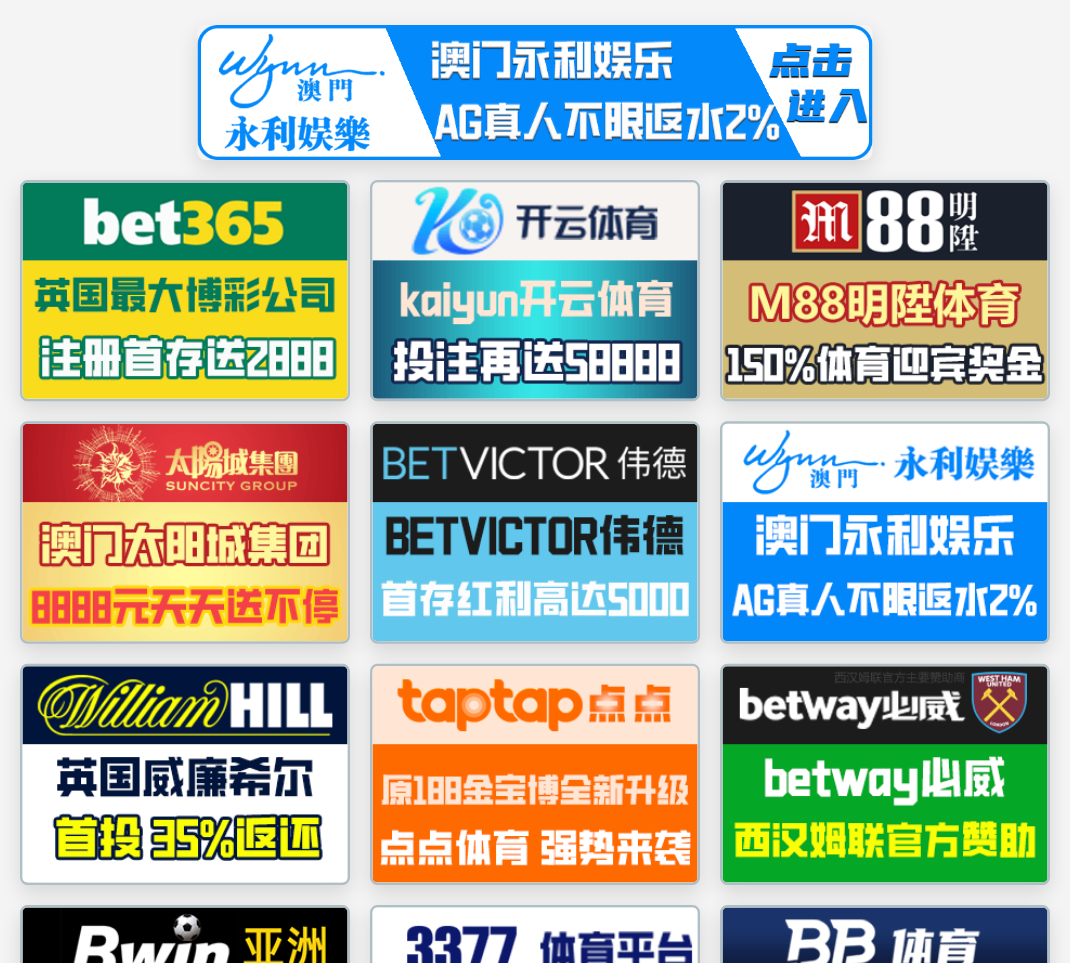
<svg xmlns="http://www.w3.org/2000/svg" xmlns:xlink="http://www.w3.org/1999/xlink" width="1070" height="963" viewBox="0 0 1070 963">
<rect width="100%" height="100%" fill="#ffffff"/>
<image xlink:href="image0.png" x="0" y="0" width="1070" height="963"/>
</svg>
